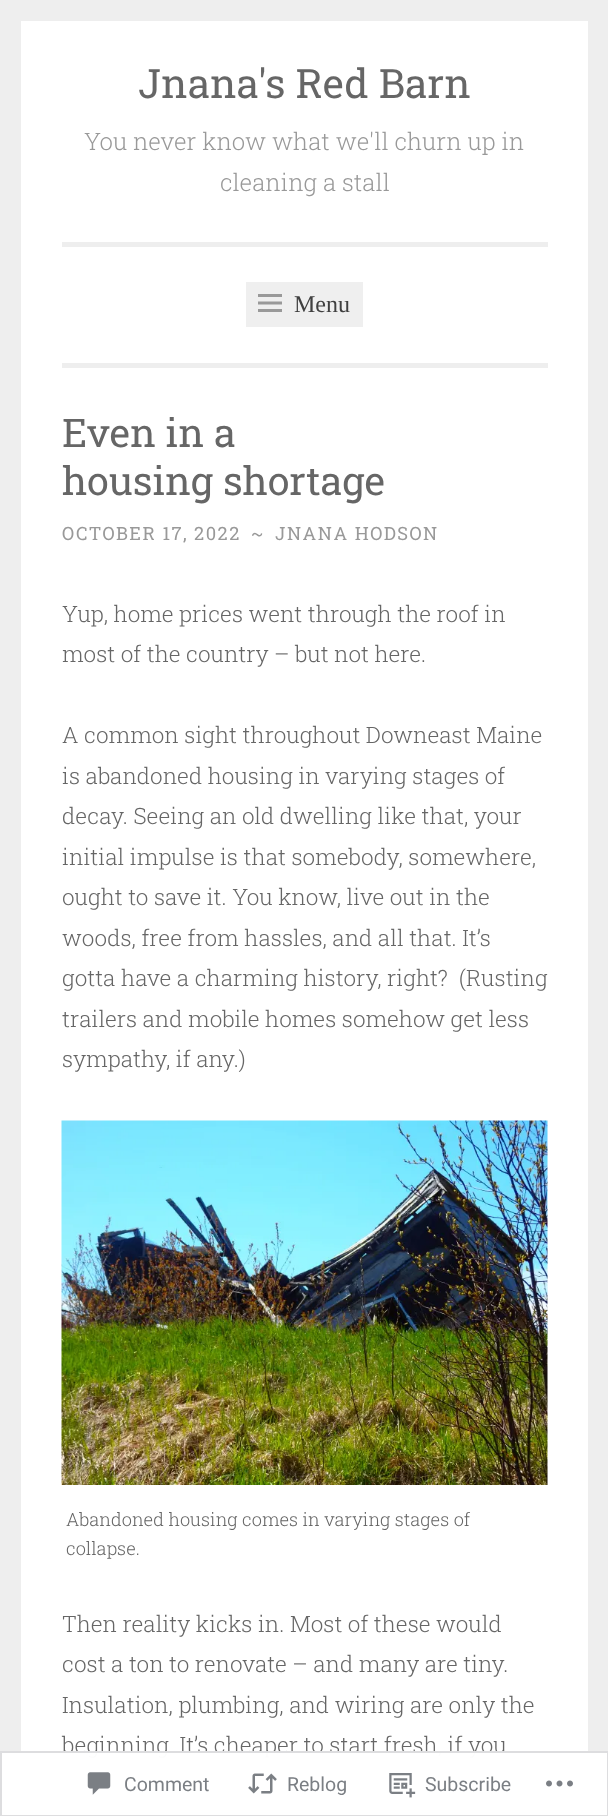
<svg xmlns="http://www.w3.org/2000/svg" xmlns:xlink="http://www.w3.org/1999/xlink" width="608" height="1816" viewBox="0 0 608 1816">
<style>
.cls-1{font:40.5px Roboto Slab;fill:#666666}
.cls-2{font:300 24px Roboto Slab;fill:#999999}
.cls-3{font:24px Liberation Serif;fill:#404040}
.cls-4{font:39.5px Roboto Slab;fill:#666666}
.cls-5{font:18.25px Roboto Slab;letter-spacing:1.5px;fill:#999999}
.cls-6{font:300 22.5px Roboto Slab;fill:#666666}
.cls-7{font:300 18.25px Roboto Slab;fill:#666666}
.cls-8{font:19.5px Roboto;fill:#7b7f84}
</style>
<rect width="100%" height="100%" fill="#eeeeee"/>
<rect fill="#ffffff" x="21" y="21" width="567" height="1795"/>
<rect fill="#eeeeee" x="62" y="363" width="486" height="5"/>
<rect fill="#eeeeee" x="62" y="242" width="486" height="5"/>
<rect fill="#efefef" x="246" y="282" width="117" height="45"/>
<image xlink:href="image0.png" x="258" y="294" width="24" height="18"/>
<image xlink:href="image1.png" x="61" y="1120" width="487" height="365"/>
<text class="cls-1" x="138" y="98">Jnana's Red Barn</text>
<text class="cls-2" x="84" y="150">You never know what we'll churn up in</text>
<text class="cls-2" x="220" y="191">cleaning a stall</text>
<text class="cls-3" x="294" y="312">Menu</text>
<text class="cls-4"><tspan x="62" y="447">Even in a</tspan><tspan x="62" y="495">housing shortage</tspan></text>
<text class="cls-5" x="62" y="540">OCTOBER 17, 2022</text>
<text class="cls-5" x="251" y="540">~</text>
<text class="cls-5" x="275" y="540">JNANA HODSON</text>
<text class="cls-6"><tspan x="62" y="622">Yup, home prices went through the roof in</tspan><tspan x="62" y="662">most of the country – but not here.</tspan></text>
<text class="cls-6" xml:space="preserve"><tspan x="62" y="743">A common sight throughout Downeast Maine</tspan><tspan x="62" y="784">is abandoned housing in varying stages of</tspan><tspan x="62" y="824">decay. Seeing an old dwelling like that, your</tspan><tspan x="62" y="865">initial impulse is that somebody, somewhere,</tspan><tspan x="62" y="905">ought to save it. You know, live out in the</tspan><tspan x="62" y="946">woods, free from hassles, and all that. It’s</tspan><tspan x="62" y="986">gotta have a charming history, right?  (Rusting</tspan><tspan x="62" y="1027">trailers and mobile homes somehow get less</tspan><tspan x="62" y="1067">sympathy, if any.)</tspan></text>
<text class="cls-7"><tspan x="66" y="1526">Abandoned housing comes in varying stages of</tspan><tspan x="66" y="1555">collapse.</tspan></text>
<text class="cls-6"><tspan x="62" y="1632">Then reality kicks in. Most of these would</tspan><tspan x="62" y="1672">cost a ton to renovate – and many are tiny.</tspan><tspan x="62" y="1713">Insulation, plumbing, and wiring are only the</tspan><tspan x="62" y="1753">beginning. It’s cheaper to start fresh, if you</tspan></text>
<rect fill="#ffffff" fill-opacity="0.98" x="0" y="1751" width="608" height="65"/>
<rect fill="none" stroke="#dcdcde" stroke-opacity="0.98" stroke-width="2" x="1" y="1752" width="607" height="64"/>
<image xlink:href="image2.png" x="87" y="1772" width="24" height="23"/>
<text class="cls-8" x="124" y="1791">Comment</text>
<image xlink:href="image3.png" x="248" y="1773" width="29" height="21"/>
<text class="cls-8" x="287" y="1791">Reblog</text>
<image xlink:href="image4.png" x="389" y="1773" width="27" height="25"/>
<text class="cls-8" x="425" y="1791">Subscribe</text>
<image xlink:href="image5.png" x="546" y="1780" width="27" height="7"/>
</svg>
